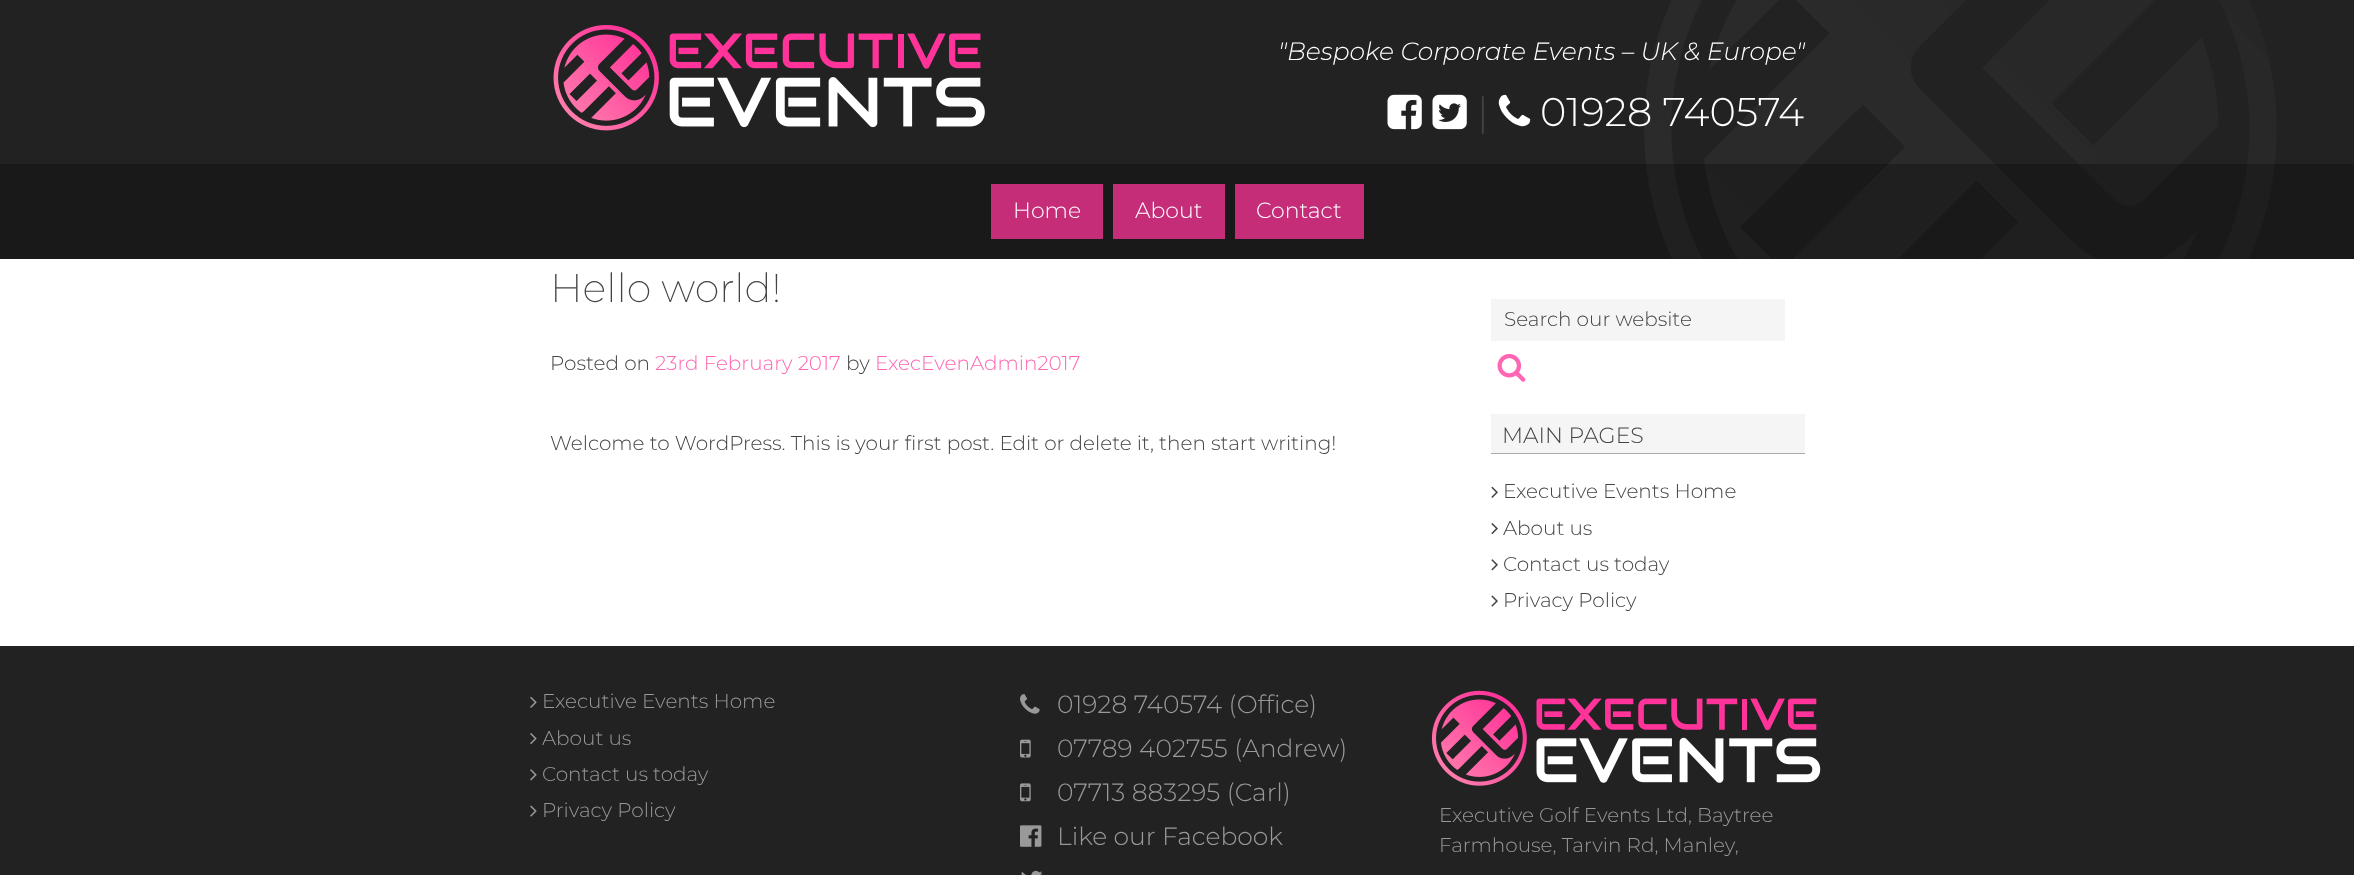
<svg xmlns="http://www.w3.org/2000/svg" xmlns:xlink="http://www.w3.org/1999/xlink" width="2354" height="875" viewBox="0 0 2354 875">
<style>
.cls-1{font:italic 300 25px Montserrat;fill:#ffffff}
.cls-2{font:300 40px Montserrat;fill:#444444}
.cls-3{font:300 40px Montserrat;fill:#ffffff}
.cls-4{font:300 22px Montserrat;fill:#ffffff}
.cls-5{font:200 40px Montserrat;fill:#444444}
.cls-6{font:300 20px Montserrat;fill:#444444}
.cls-7{font:300 20px Montserrat;fill:#ff66b3}
.cls-8{font:300 22px Montserrat;fill:#444444}
.cls-9{font:300 20px Montserrat;fill:#999999}
.cls-10{font:300 25px Montserrat;fill:#999999}
</style>
<rect width="100%" height="100%" fill="#ffffff"/>
<rect fill="#222222" x="0" y="0" width="2354" height="259"/>
<image xlink:href="image0.png" x="1644" y="0" width="633" height="259"/>
<image xlink:href="image1.png" x="553" y="24" width="432" height="107"/>
<image xlink:href="image2.png" x="1387" y="94" width="35" height="36"/>
<image xlink:href="image3.png" x="1432" y="94" width="35" height="36"/>
<image xlink:href="image4.png" x="1498" y="94" width="33" height="33"/>
<rect fill="#000000" fill-opacity="0.25" x="0" y="164" width="2354" height="95"/>
<rect fill="#c62d79" x="991" y="184" width="112" height="55"/>
<rect fill="#c62d79" x="1113" y="184" width="112" height="55"/>
<rect fill="#c62d79" x="1235" y="184" width="129" height="55"/>
<rect fill="#f5f5f5" x="1491" y="299" width="294" height="42"/>
<image xlink:href="image5.png" x="1497" y="353" width="29" height="29"/>
<rect fill="#f5f5f5" x="1491" y="414" width="314" height="39"/>
<rect fill="#aaaaaa" x="1491" y="453" width="314" height="1"/>
<image xlink:href="image6.png" x="1491" y="486" width="7" height="12"/>
<image xlink:href="image7.png" x="1491" y="523" width="7" height="12"/>
<image xlink:href="image8.png" x="1491" y="559" width="7" height="12"/>
<image xlink:href="image9.png" x="1491" y="595" width="7" height="12"/>
<rect fill="#222222" x="0" y="646" width="2354" height="229"/>
<image xlink:href="image10.png" x="530" y="696" width="7" height="12"/>
<image xlink:href="image11.png" x="530" y="733" width="7" height="11"/>
<image xlink:href="image12.png" x="530" y="769" width="7" height="12"/>
<image xlink:href="image13.png" x="530" y="805" width="7" height="12"/>
<image xlink:href="image14.png" x="1020" y="694" width="20" height="20"/>
<image xlink:href="image15.png" x="1020" y="739" width="11" height="19"/>
<image xlink:href="image16.png" x="1020" y="783" width="11" height="19"/>
<image xlink:href="image17.png" x="1020" y="825" width="22" height="22"/>
<image xlink:href="image18.png" x="1021" y="870" width="22" height="5"/>
<image xlink:href="image19.png" x="1431" y="690" width="390" height="96"/>
<text class="cls-1" x="1278" y="60">"Bespoke Corporate Events – UK &amp; Europe"</text>
<text class="cls-2" x="1477" y="126">|</text>
<text class="cls-3" x="1540" y="126">01928 740574</text>
<text class="cls-4" x="1013" y="218">Home</text>
<text class="cls-4" x="1135" y="218">About</text>
<text class="cls-4" x="1256" y="218">Contact</text>
<text class="cls-5" x="550" y="302">Hello world!</text>
<text class="cls-6" x="550" y="370">Posted on</text>
<text class="cls-7" x="655" y="370">23rd February 2017</text>
<text class="cls-6" x="846" y="370">by</text>
<text class="cls-7" x="875" y="370">ExecEvenAdmin2017</text>
<text class="cls-6" x="550" y="450">Welcome to WordPress. This is your first post. Edit or delete it, then start writing!</text>
<text class="cls-6" x="1504" y="326">Search our website</text>
<text class="cls-8" x="1502" y="443">MAIN PAGES</text>
<text class="cls-6"><tspan x="1503" y="498">Executive Events Home</tspan><tspan x="1503" y="535">About us</tspan><tspan x="1503" y="571">Contact us today</tspan><tspan x="1503" y="607">Privacy Policy</tspan></text>
<text class="cls-9"><tspan x="542" y="708">Executive Events Home</tspan><tspan x="542" y="745">About us</tspan><tspan x="542" y="781">Contact us today</tspan><tspan x="542" y="817">Privacy Policy</tspan></text>
<text class="cls-10"><tspan x="1057" y="713">01928 740574 (Office)</tspan><tspan x="1057" y="757">07789 402755 (Andrew)</tspan><tspan x="1057" y="801">07713 883295 (Carl)</tspan><tspan x="1057" y="845">Like our Facebook</tspan></text>
<text class="cls-9"><tspan x="1439" y="822">Executive Golf Events Ltd, Baytree</tspan><tspan x="1439" y="852">Farmhouse, Tarvin Rd, Manley,</tspan></text>
</svg>
